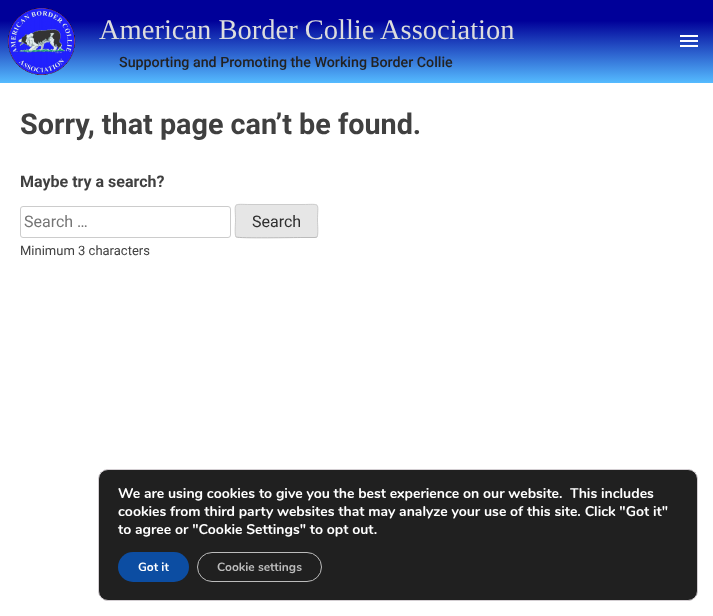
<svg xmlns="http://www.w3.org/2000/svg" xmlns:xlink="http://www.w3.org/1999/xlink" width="713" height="616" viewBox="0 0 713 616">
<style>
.cls-1{font:28.5px Liberation Serif;fill:#dddddd}
.cls-2{font:500 14.25px Roboto;fill:#222222}
.cls-3{font:bold 28.75px Roboto;fill:#404040}
.cls-4{font:bold 16px Roboto;fill:#404040}
.cls-5{font:16px Roboto;fill:#757575}
.cls-6{font:16px Roboto;fill:#2e2e2e}
.cls-7{font:13px Roboto;fill:#404040}
.cls-8{font:bold 14px Nunito;fill:#ffffff}
.cls-9{font:bold 12px Nunito;fill:#ffffff}
.cls-10{font:bold 12px Nunito;fill:#bcbcbc}
</style>
<defs>
<linearGradient id="g1" gradientUnits="userSpaceOnUse" x1="357" y1="0" x2="357" y2="83"><stop offset="0.25" stop-color="#000099"/><stop offset="1" stop-color="#55bbff"/></linearGradient>
</defs>
<rect width="100%" height="100%" fill="#ffffff"/>
<rect fill="url(#g1)" x="0" y="0" width="713" height="83"/>
<image xlink:href="image0.png" x="7" y="7" width="69" height="68"/>
<image xlink:href="image1.png" x="680" y="35" width="18" height="12"/>
<rect fill="none" stroke="#cccccc" x="20.5" y="206.5" width="210" height="31" rx="2.5"/>
<rect fill="#e6e6e6" x="235" y="204" width="83" height="34" rx="3"/>
<path fill="none" stroke="#bbbbbb" d="M317 237L315 237.5H302C295 237.5 238.5 238.5 236.5 237H236"/>
<path fill="none" stroke="#cccccc" d="M236 237C234.5 235 235.5 223.5 235.5 221C235.5 201.5 231.5 204.5 251 204.5H302C321.5 204.5 317.5 201.5 317.5 221C317.5 223.5 318.5 235 317 237"/>
<rect fill="#202020" stroke="#d3ced2" x="98.5" y="469.5" width="599" height="131" rx="9.5"/>
<rect fill="#0c4da2" x="118" y="552" width="71" height="30" rx="15"/>
<rect fill="none" stroke="#bcbcbc" x="197.5" y="552.5" width="124" height="29" rx="14.5"/>
<text class="cls-1" x="99" y="39">American Border Collie Association</text>
<text class="cls-2" x="119" y="67">Supporting and Promoting the Working Border Collie</text>
<text class="cls-3" x="20" y="134">Sorry, that page can’t be found.</text>
<text class="cls-4" x="20" y="187">Maybe try a search?</text>
<text class="cls-5" x="24" y="227">Search …</text>
<text class="cls-6" x="252" y="227">Search</text>
<text class="cls-7" x="20" y="255">Minimum 3 characters</text>
<text class="cls-8" xml:space="preserve"><tspan x="118" y="498">We are using cookies to give you the best experience on our website.  This includes</tspan><tspan x="118" y="516">cookies from third party websites that may analyze your use of this site. Click "Got it"</tspan><tspan x="118" y="534">to agree or "Cookie Settings" to opt out.</tspan></text>
<text class="cls-9" x="138" y="571">Got it</text>
<text class="cls-10" x="217" y="571">Cookie settings</text>
</svg>
